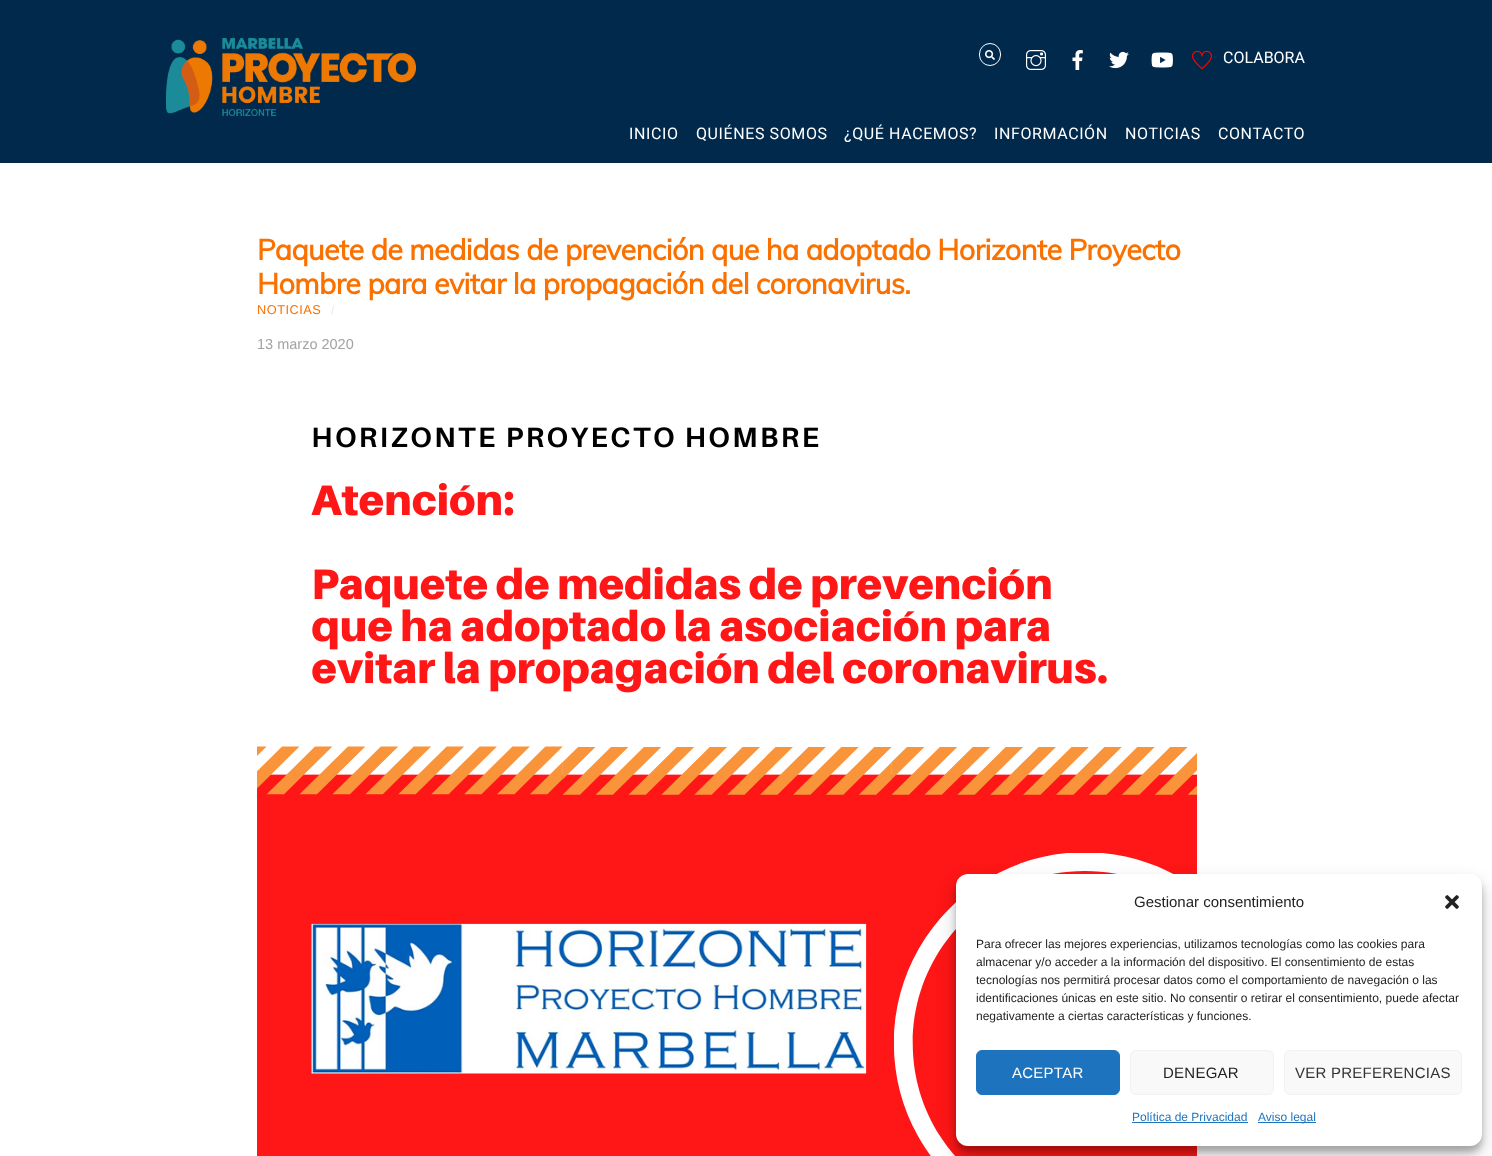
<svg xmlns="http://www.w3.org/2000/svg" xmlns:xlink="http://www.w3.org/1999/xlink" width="1492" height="1156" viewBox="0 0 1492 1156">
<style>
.cls-1{font:16px Roboto;fill:#ffffff}
.cls-2{font:16px Roboto;letter-spacing:0.6px;fill:#ffffff}
.cls-3{font:bold 28.8px Muli;letter-spacing:-0.58px;fill:#fb7100}
.cls-4{font:12.75px Liberation Sans;letter-spacing:0.5px;fill:#fb7100}
.cls-5{font:12.75px Liberation Sans;letter-spacing:0.5px;fill:#ebebeb}
.cls-6{font:14.5px Liberation Sans;fill:#a3a3a3}
.cls-7{font:15px Liberation Sans;fill:#222222}
.cls-8{font:12px Liberation Sans;fill:#222222}
.cls-9{font:15px Liberation Sans;letter-spacing:0.25px;fill:#ffffff}
.cls-10{font:15px Liberation Sans;letter-spacing:0.25px;fill:#222222}
.cls-11{font:15px Liberation Sans;letter-spacing:0.25px;fill:#333333}
.cls-12{font:12px Liberation Sans;fill:#1e73be}
</style>
<rect width="100%" height="100%" fill="#ffffff"/>
<rect fill="#00294c" x="0" y="0" width="1492" height="163"/>
<image xlink:href="image0.png" x="166" y="38" width="250" height="78"/>
<rect fill="none" stroke="#ffffff" x="979.5" y="43.5" width="21" height="22" rx="10.5"/>
<image xlink:href="image1.png" x="985" y="50" width="10" height="10"/>
<image xlink:href="image2.png" x="1026" y="50" width="20" height="20"/>
<image xlink:href="image3.png" x="1072" y="50" width="11" height="20"/>
<image xlink:href="image4.png" x="1109" y="51" width="20" height="18"/>
<image xlink:href="image5.png" x="1151" y="52" width="22" height="16"/>
<image xlink:href="image6.png" x="1192" y="50" width="20" height="20"/>
<image xlink:href="image7.png" x="257" y="427" width="940" height="729"/>
<rect fill="#000000" fill-opacity="0.23" filter="blur(3px)" x="956" y="880" width="526" height="272" rx="12"/>
<rect fill="#000000" fill-opacity="0.19" filter="blur(10px)" x="956" y="884" width="526" height="272" rx="12"/>
<rect fill="#ffffff" x="956" y="874" width="526" height="272" rx="12"/>
<image xlink:href="image8.png" x="1445" y="895" width="14" height="14"/>
<rect fill="#1e73be" stroke="#1e73be" x="976.5" y="1050.5" width="143" height="44" rx="5.5"/>
<rect fill="#f9f9f9" stroke="#f2f2f2" x="1130.5" y="1050.5" width="143" height="44" rx="5.5"/>
<rect fill="#f9f9f9" stroke="#f2f2f2" x="1284.5" y="1050.5" width="177" height="44" rx="5.5"/>
<rect fill="#1e73be" x="1132" y="1122" width="116" height="1"/>
<rect fill="#1e73be" x="1258" y="1122" width="58" height="1"/>
<text class="cls-1" x="1223" y="63">COLABORA</text>
<text class="cls-2" x="629" y="139">INICIO</text>
<text class="cls-2" x="696" y="139">QUIÉNES SOMOS</text>
<text class="cls-2" x="844" y="139">¿QUÉ HACEMOS?</text>
<text class="cls-2" x="994" y="139">INFORMACIÓN</text>
<text class="cls-2" x="1125" y="139">NOTICIAS</text>
<text class="cls-2" x="1218" y="139">CONTACTO</text>
<text class="cls-3"><tspan x="257" y="260">Paquete de medidas de prevención que ha adoptado Horizonte Proyecto</tspan><tspan x="257" y="294">Hombre para evitar la propagación del coronavirus.</tspan></text>
<text class="cls-4" x="257" y="314">NOTICIAS</text>
<text class="cls-5" x="331" y="314">/</text>
<text class="cls-6" x="257" y="349">13 marzo 2020</text>
<text class="cls-7" x="1134" y="907">Gestionar consentimiento</text>
<text class="cls-8"><tspan x="976" y="948">Para ofrecer las mejores experiencias, utilizamos tecnologías como las cookies para</tspan><tspan x="976" y="966">almacenar y/o acceder a la información del dispositivo. El consentimiento de estas</tspan><tspan x="976" y="984">tecnologías nos permitirá procesar datos como el comportamiento de navegación o las</tspan><tspan x="976" y="1002">identificaciones únicas en este sitio. No consentir o retirar el consentimiento, puede afectar</tspan><tspan x="976" y="1020">negativamente a ciertas características y funciones.</tspan></text>
<text class="cls-9" x="1012" y="1078">ACEPTAR</text>
<text class="cls-10" x="1163" y="1078">DENEGAR</text>
<text class="cls-11" x="1295" y="1078">VER PREFERENCIAS</text>
<text class="cls-12" x="1132" y="1121">Política de Privacidad</text>
<text class="cls-12" x="1258" y="1121">Aviso legal</text>
</svg>
